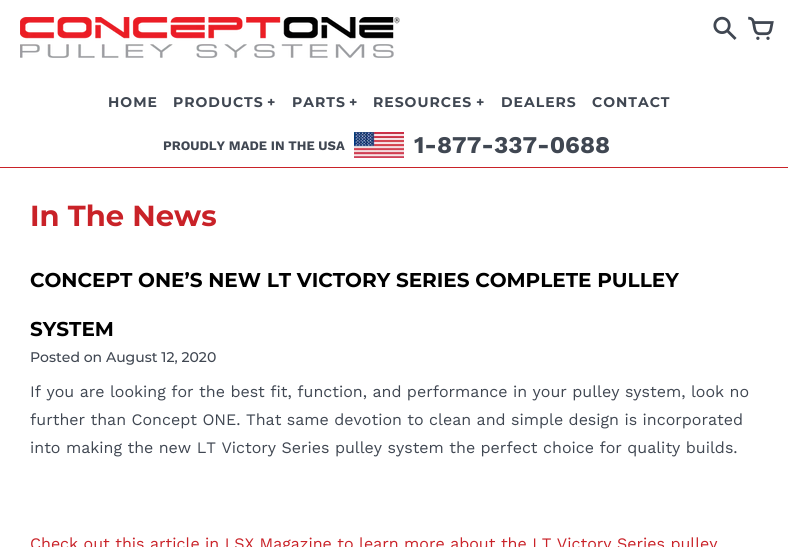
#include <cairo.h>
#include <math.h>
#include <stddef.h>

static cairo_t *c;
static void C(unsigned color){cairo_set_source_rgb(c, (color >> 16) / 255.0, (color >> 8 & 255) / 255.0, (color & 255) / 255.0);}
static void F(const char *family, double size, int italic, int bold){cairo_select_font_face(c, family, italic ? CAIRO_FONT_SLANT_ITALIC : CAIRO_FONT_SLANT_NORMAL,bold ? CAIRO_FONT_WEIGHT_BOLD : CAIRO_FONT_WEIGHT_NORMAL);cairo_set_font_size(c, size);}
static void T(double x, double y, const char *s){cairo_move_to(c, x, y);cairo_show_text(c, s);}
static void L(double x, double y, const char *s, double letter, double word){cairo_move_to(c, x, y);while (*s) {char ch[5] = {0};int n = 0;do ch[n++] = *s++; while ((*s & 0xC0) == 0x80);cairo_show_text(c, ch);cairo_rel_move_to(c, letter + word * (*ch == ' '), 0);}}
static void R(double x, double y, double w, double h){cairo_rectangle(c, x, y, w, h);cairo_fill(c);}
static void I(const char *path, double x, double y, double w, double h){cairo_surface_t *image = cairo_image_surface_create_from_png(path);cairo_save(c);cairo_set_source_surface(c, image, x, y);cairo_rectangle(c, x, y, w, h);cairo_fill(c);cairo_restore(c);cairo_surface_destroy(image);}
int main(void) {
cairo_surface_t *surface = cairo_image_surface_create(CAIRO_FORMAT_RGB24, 788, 547);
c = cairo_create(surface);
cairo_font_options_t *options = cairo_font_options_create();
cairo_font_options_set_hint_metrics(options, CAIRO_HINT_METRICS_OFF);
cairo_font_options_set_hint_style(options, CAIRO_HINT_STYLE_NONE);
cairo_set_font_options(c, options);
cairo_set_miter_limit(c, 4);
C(0xffffff);
cairo_paint(c);
C(0xc92228);
R(0,167,788,1);
I("1.png",20,17,380,41);
F("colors",26,0,0);
C(0x404752);
T(712,43,"2");
T(748,43,"3");
F("Montserrat",14,0,1);
L(108,107,"HOME",1,0);
L(173,107,"PRODUCTS",1,0);
L(267,107,"+",1,0);
L(292,107,"PARTS",1,0);
L(349,107,"+",1,0);
L(373,107,"RESOURCES",1,0);
L(476,107,"+",1,0);
L(501,107,"DEALERS",1,0);
L(592,107,"CONTACT",1,0);
F("Work Sans",13,0,1);
T(163,150,"PROUDLY MADE IN THE USA");
I("2.png",354,132,50,26);
F("Work Sans",24,0,1);
T(414,153,"1-877-337-0688");
F("Montserrat",29,0,1);
C(0xc92228);
T(30,226,"In The News");
F("Montserrat",20,0,1);
C(0x000000);
T(30,287,"CONCEPT ONE’S NEW LT VICTORY SERIES COMPLETE PULLEY");
T(30,336,"SYSTEM");
F("Montserrat Medium",14,0,0);
C(0x404752);
T(30,362,"Posted on August 12, 2020");
F("Work Sans",16,0,0);
T(30,397,"If you are looking for the best fit, function, and performance in your pulley system, look no");
T(30,425,"further than Concept ONE. That same devotion to clean and simple design is incorporated");
T(30,453,"into making the new LT Victory Series pulley system the perfect choice for quality builds.");
C(0xc92228);
T(30,549,"Check out this article in LSX Magazine to learn more about the LT Victory Series pulley");
cairo_surface_write_to_png(surface, "o.png");
cairo_font_options_destroy(options);
cairo_destroy(c);
cairo_surface_destroy(surface);
return 0;
}
